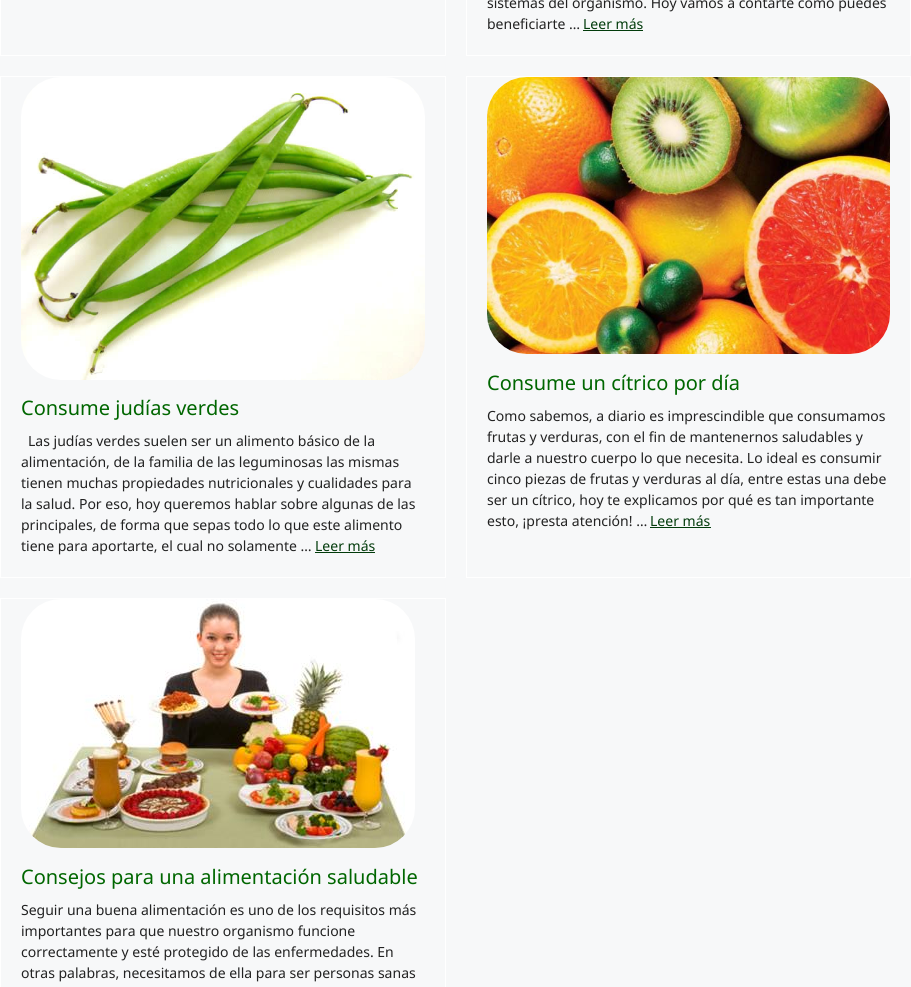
#include <cairo.h>
#include <math.h>
#include <stddef.h>

static cairo_t *c;
static void C(unsigned color){cairo_set_source_rgb(c, (color >> 16) / 255.0, (color >> 8 & 255) / 255.0, (color & 255) / 255.0);}
static void F(const char *family, double size, int italic, int bold){cairo_select_font_face(c, family, italic ? CAIRO_FONT_SLANT_ITALIC : CAIRO_FONT_SLANT_NORMAL,bold ? CAIRO_FONT_WEIGHT_BOLD : CAIRO_FONT_WEIGHT_NORMAL);cairo_set_font_size(c, size);}
static void T(double x, double y, const char *s){cairo_move_to(c, x, y);cairo_show_text(c, s);}
static void R(double x, double y, double w, double h){cairo_rectangle(c, x, y, w, h);cairo_fill(c);}
static void I(const char *path, double x, double y, double w, double h){cairo_surface_t *image = cairo_image_surface_create_from_png(path);cairo_save(c);cairo_set_source_surface(c, image, x, y);cairo_rectangle(c, x, y, w, h);cairo_fill(c);cairo_restore(c);cairo_surface_destroy(image);}
int main(void) {
cairo_surface_t *surface = cairo_image_surface_create(CAIRO_FORMAT_RGB24, 911, 987);
c = cairo_create(surface);
cairo_font_options_t *options = cairo_font_options_create();
cairo_font_options_set_hint_metrics(options, CAIRO_HINT_METRICS_OFF);
cairo_font_options_set_hint_style(options, CAIRO_HINT_STYLE_NONE);
cairo_set_font_options(c, options);
cairo_set_miter_limit(c, 4);
C(0xf7f8f9);
cairo_paint(c);
cairo_rectangle(c,.5,-.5,445,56);
C(0xffffff);
cairo_set_line_width(c,1);
cairo_stroke(c);
cairo_rectangle(c,466.5,-.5,444,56);
cairo_stroke(c);
F("Noto Sans",14,0,0);
C(0x222222);
T(487,8,"sistemas del organismo. Hoy vamos a contarte cómo puedes");
T(487,29,"beneficiarte …");
C(0x023b0b);
T(583,29,"Leer más");
R(583,30,60,1);
cairo_rectangle(c,.5,76.5,445,501);
C(0xffffff);
cairo_stroke(c);
I("1.png",21,77,404,303);
F("Noto Sans",20,0,0);
C(0x006600);
T(21,415,"Consume judías verdes");
F("Noto Sans",14,0,0);
C(0x222222);
T(28,446,"Las judías verdes suelen ser un alimento básico de la");
T(21,467,"alimentación, de la familia de las leguminosas las mismas");
T(21,488,"tienen muchas propiedades nutricionales y cualidades para");
T(21,509,"la salud. Por eso, hoy queremos hablar sobre algunas de las");
T(21,530,"principales, de forma que sepas todo lo que este alimento");
T(21,551,"tiene para aportarte, el cual no solamente …");
C(0x023b0b);
T(315,551,"Leer más");
R(315,552,60,1);
cairo_rectangle(c,466.5,76.5,444,501);
C(0xffffff);
cairo_stroke(c);
I("2.png",487,77,403,277);
F("Noto Sans",20,0,0);
C(0x006600);
T(487,390,"Consume un cítrico por día");
F("Noto Sans",14,0,0);
C(0x222222);
T(487,421,"Como sabemos, a diario es imprescindible que consumamos");
T(487,442,"frutas y verduras, con el fin de mantenernos saludables y");
T(487,463,"darle a nuestro cuerpo lo que necesita. Lo ideal es consumir");
T(487,484,"cinco piezas de frutas y verduras al día, entre estas una debe");
T(487,505,"ser un cítrico, hoy te explicamos por qué es tan importante");
T(487,526,"esto, ¡presta atención! …");
C(0x023b0b);
T(650,526,"Leer más");
R(650,527,61,1);
cairo_rectangle(c,.5,598.5,445,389);
C(0xffffff);
cairo_stroke(c);
I("3.png",21,599,394,249);
F("Noto Sans",20,0,0);
C(0x006600);
T(21,884,"Consejos para una alimentación saludable");
F("Noto Sans",14,0,0);
C(0x222222);
T(21,915,"Seguir una buena alimentación es uno de los requisitos más");
T(21,936,"importantes para que nuestro organismo funcione");
T(21,957,"correctamente y esté protegido de las enfermedades. En");
T(21,978,"otras palabras, necesitamos de ella para ser personas sanas");
cairo_surface_write_to_png(surface, "o.png");
cairo_font_options_destroy(options);
cairo_destroy(c);
cairo_surface_destroy(surface);
return 0;
}
